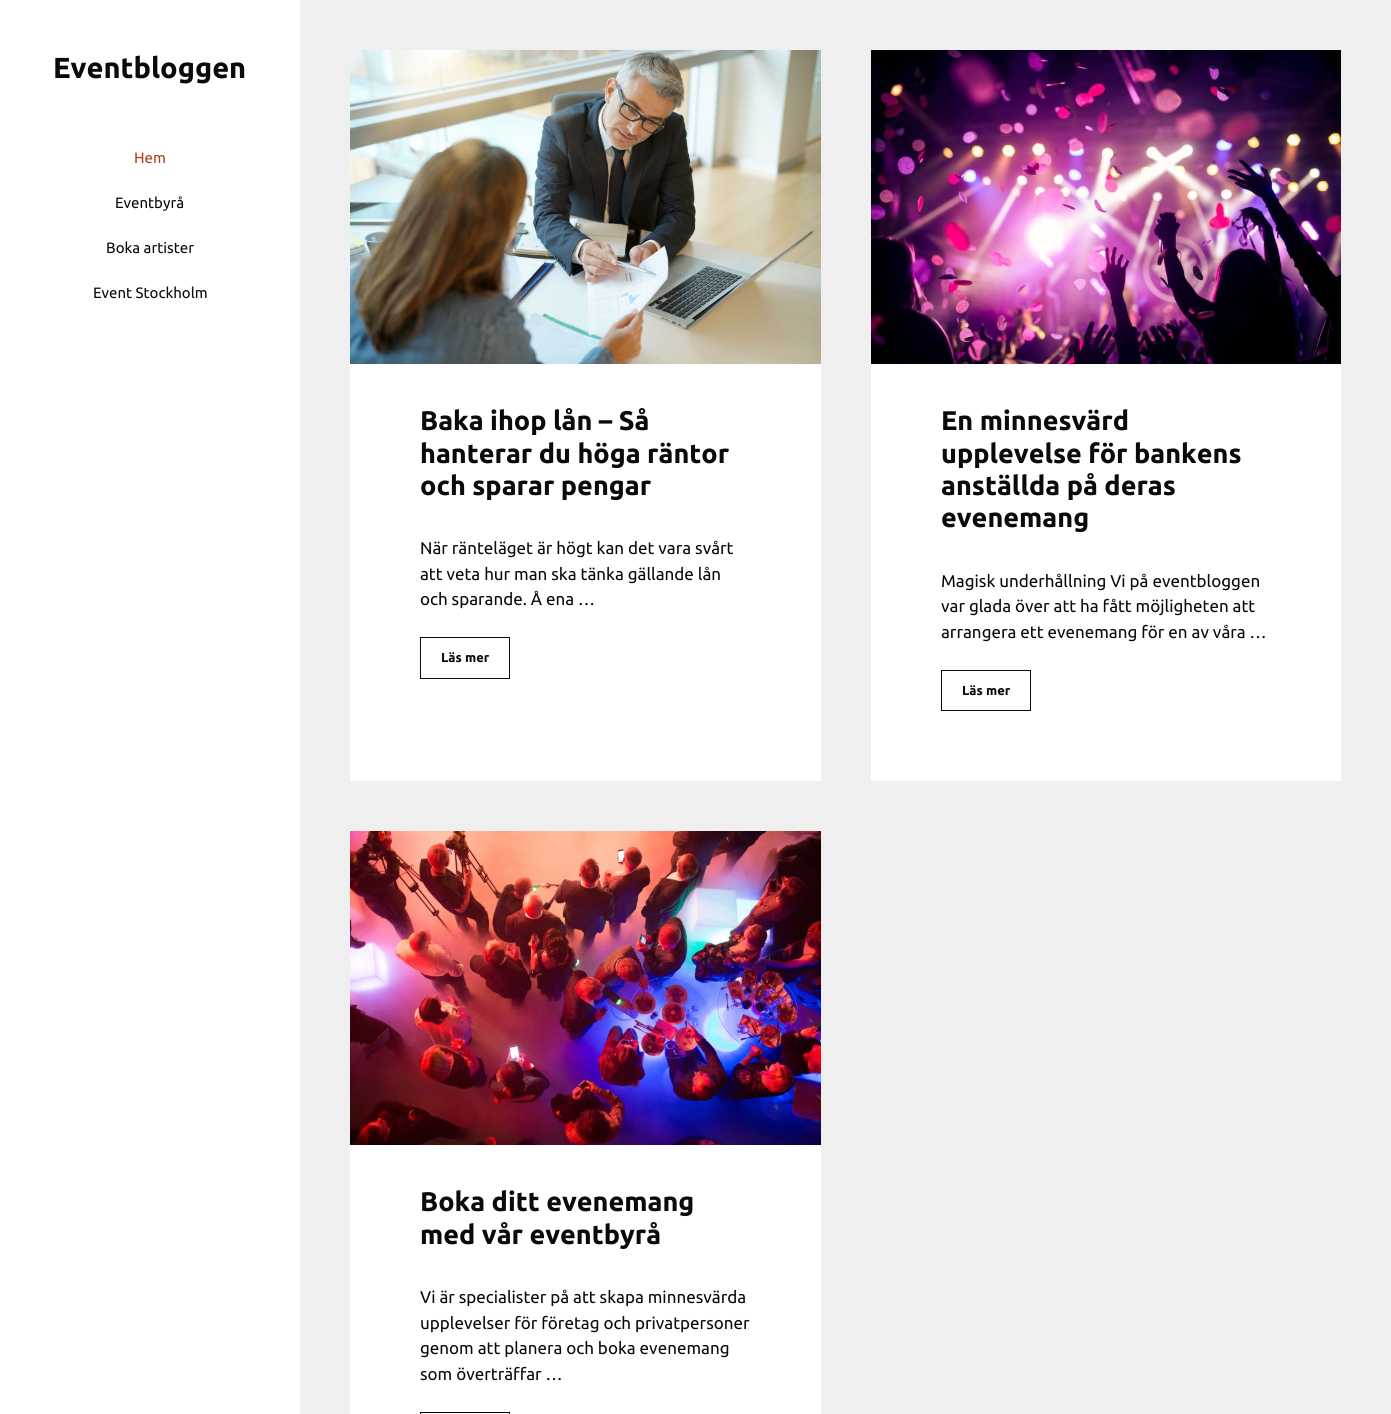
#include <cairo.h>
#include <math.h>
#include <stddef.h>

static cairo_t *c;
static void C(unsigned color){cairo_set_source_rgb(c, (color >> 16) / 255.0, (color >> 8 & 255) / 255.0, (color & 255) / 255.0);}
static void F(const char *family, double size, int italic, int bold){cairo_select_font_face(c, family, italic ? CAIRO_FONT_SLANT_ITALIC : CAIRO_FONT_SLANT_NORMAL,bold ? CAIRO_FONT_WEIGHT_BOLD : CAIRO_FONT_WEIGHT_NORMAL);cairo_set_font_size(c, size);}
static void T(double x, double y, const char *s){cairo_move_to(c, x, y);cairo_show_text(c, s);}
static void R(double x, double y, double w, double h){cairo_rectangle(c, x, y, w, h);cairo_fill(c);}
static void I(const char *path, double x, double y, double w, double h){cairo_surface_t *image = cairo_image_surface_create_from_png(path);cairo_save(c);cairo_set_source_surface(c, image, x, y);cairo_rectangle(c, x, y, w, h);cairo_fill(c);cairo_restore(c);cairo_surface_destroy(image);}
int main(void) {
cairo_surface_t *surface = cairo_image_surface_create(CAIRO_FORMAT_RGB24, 1391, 1414);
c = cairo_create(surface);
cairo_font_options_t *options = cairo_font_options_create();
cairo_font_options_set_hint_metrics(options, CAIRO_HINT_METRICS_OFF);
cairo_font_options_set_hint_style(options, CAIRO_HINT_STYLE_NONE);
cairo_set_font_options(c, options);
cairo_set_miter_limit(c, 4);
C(0xefefef);
cairo_paint(c);
C(0xffffff);
R(0,0,300,1414);
F("Ubuntu",29,0,1);
C(0x0a0a0a);
T(53,78,"Eventbloggen");
F("Ubuntu",15,0,0);
C(0xa83f19);
T(134,163,"Hem");
C(0x0a0a0a);
T(115,208,"Eventbyrå");
T(106,253,"Boka artister");
T(93,298,"Event Stockholm");
C(0xffffff);
R(350,364,471,417);
I("1.png",350,50,471,314);
F("Ubuntu",27,0,1);
C(0x0a0a0a);
T(420,430,"Baka ihop lån – Så");
T(420,463,"hanterar du höga räntor");
T(420,495,"och sparar pengar");
F("Ubuntu",17,0,0);
T(420,554,"När ränteläget är högt kan det vara svårt");
T(420,580,"att veta hur man ska tänka gällande lån");
T(420,605,"och sparande. Å ena …");
cairo_rectangle(c,420.5,637.5,89,41);
cairo_set_line_width(c,1);
cairo_stroke(c);
F("Ubuntu",13,0,1);
T(441,662,"Läs mer");
C(0xffffff);
R(871,364,470,417);
I("2.png",871,50,470,314);
F("Ubuntu",27,0,1);
C(0x0a0a0a);
T(941,430,"En minnesvärd");
T(941,463,"upplevelse för bankens");
T(941,495,"anställda på deras");
T(941,527,"evenemang");
F("Ubuntu",17,0,0);
T(941,587,"Magisk underhållning Vi på eventbloggen");
T(941,612,"var glada över att ha fått möjligheten att");
T(941,638,"arrangera ett evenemang för en av våra …");
cairo_rectangle(c,941.5,670.5,89,40);
cairo_stroke(c);
F("Ubuntu",13,0,1);
T(962,695,"Läs mer");
C(0xffffff);
R(350,1145,471,269);
I("3.png",350,831,471,314);
F("Ubuntu",27,0,1);
C(0x0a0a0a);
T(420,1211,"Boka ditt evenemang");
T(420,1244,"med vår eventbyrå");
F("Ubuntu",17,0,0);
T(420,1303,"Vi är specialister på att skapa minnesvärda");
T(420,1329,"upplevelser för företag och privatpersoner");
T(420,1354,"genom att planera och boka evenemang");
T(420,1380,"som överträffar …");
cairo_rectangle(c,420.5,1412.5,89,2);
cairo_stroke(c);
cairo_surface_write_to_png(surface, "o.png");
cairo_font_options_destroy(options);
cairo_destroy(c);
cairo_surface_destroy(surface);
return 0;
}
